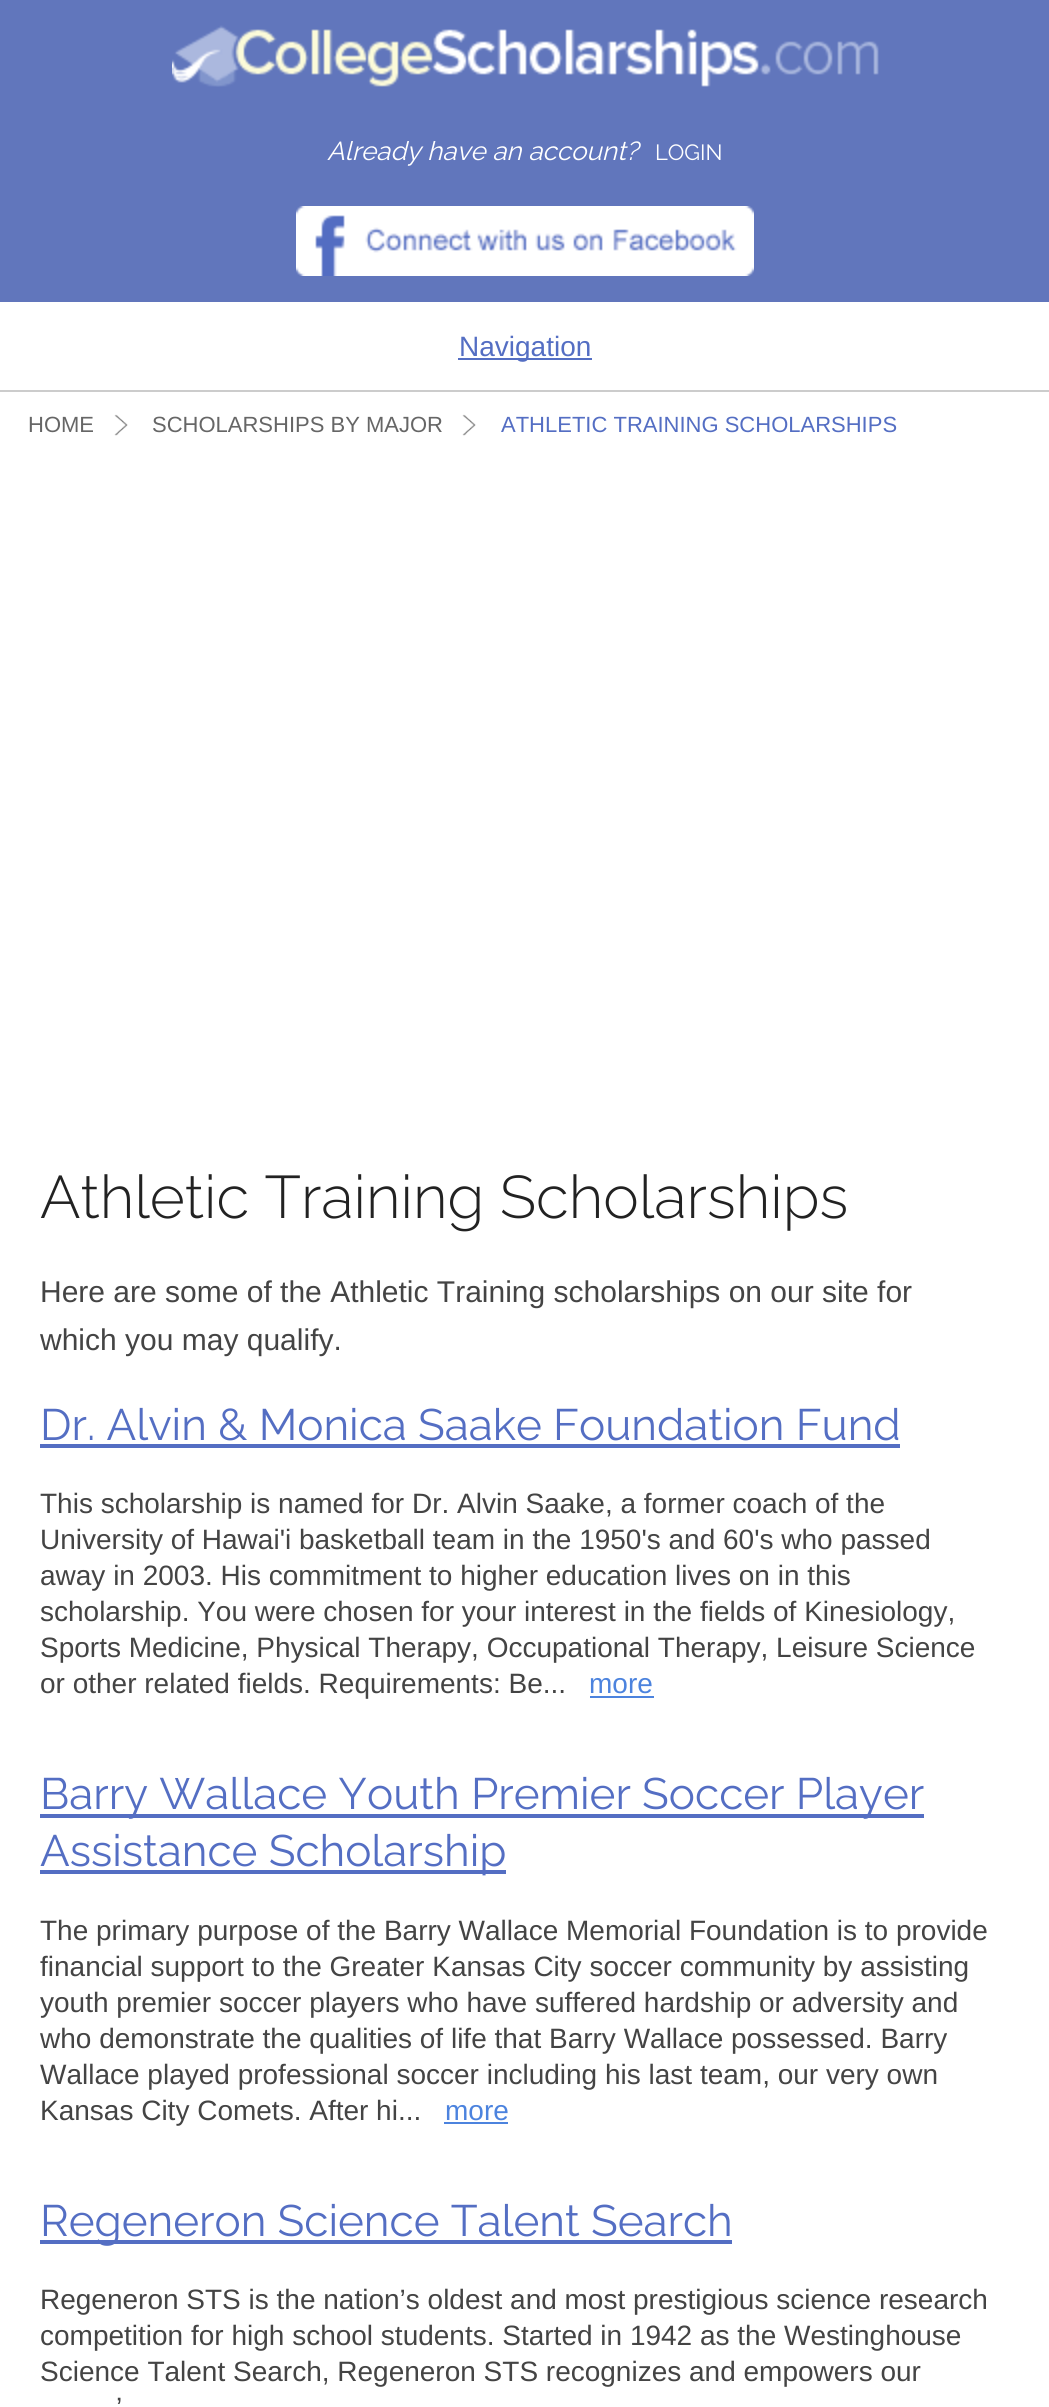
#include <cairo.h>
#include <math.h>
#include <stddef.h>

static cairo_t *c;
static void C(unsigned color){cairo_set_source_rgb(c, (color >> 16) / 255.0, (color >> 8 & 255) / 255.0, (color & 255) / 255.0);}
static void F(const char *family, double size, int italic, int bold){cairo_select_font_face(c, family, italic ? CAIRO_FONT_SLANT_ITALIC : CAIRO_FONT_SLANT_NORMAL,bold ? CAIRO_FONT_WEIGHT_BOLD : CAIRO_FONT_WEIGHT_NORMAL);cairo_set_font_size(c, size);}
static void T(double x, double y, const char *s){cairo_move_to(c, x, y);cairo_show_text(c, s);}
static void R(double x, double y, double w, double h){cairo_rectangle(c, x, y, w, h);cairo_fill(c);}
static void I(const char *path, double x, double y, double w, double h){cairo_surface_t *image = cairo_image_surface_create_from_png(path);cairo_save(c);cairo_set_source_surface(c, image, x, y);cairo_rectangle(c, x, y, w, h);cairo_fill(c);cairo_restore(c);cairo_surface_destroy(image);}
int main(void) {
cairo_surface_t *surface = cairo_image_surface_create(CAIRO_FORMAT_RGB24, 1049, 2407);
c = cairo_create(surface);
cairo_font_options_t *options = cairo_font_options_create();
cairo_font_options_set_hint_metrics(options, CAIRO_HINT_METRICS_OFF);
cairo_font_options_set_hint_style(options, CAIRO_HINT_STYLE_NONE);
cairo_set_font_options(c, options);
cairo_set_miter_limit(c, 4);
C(0xffffff);
cairo_paint(c);
C(0x6176bc);
R(0,0,1049,302);
I("1.png",172,25,707,62);
F("Raleway",26,1,0);
C(0xffffff);
T(327,160,"Already have an account?");
F("Raleway",22,0,0);
T(655,160,"LOGIN");
I("2.png",296,206,458,70);
C(0x546ec3);
R(458,358,134,2);
F("Liberation Sans",28,0,0);
T(459,356,"Navigation");
C(0xcccccc);
R(0,390,1049,2);
F("Liberation Sans",22,0,0);
C(0x666666);
T(28,432,"HOME");
I("3.png",114,414,14,22);
T(152,432,"SCHOLARSHIPS BY MAJOR");
I("3.png",462,414,14,22);
C(0x546ec3);
T(501,432,"ATHLETIC TRAINING SCHOLARSHIPS");
F("Raleway Light",60,0,0);
C(0x222222);
T(40,1218,"Athletic Training Scholarships");
F("Liberation Sans",30,0,0);
C(0x444444);
T(40,1302,"Here are some of the Athletic Training scholarships on our site for");
T(40,1350,"which you may qualify.");
F("Raleway",44,0,0);
C(0x546ec3);
T(40,1440,"Dr. Alvin & Monica Saake Foundation Fund");
R(40,1444,860,4);
F("Liberation Sans",28,0,0);
C(0x444444);
T(40,1513,"This scholarship is named for Dr. Alvin Saake, a former coach of the");
T(40,1549,"University of Hawai'i basketball team in the 1950's and 60's who passed");
T(40,1585,"away in 2003. His commitment to higher education lives on in this");
T(40,1621,"scholarship. You were chosen for your interest in the fields of Kinesiology,");
T(40,1657,"Sports Medicine, Physical Therapy, Occupational Therapy, Leisure Science");
T(40,1693,"or other related fields. Requirements: Be...");
C(0x4c83de);
T(589,1693,"more");
R(590,1696,64,2);
C(0x546ec3);
R(40,1814,884,4);
F("Raleway",44,0,0);
T(40,1809,"Barry Wallace Youth Premier Soccer Player");
R(40,1870,466,4);
T(40,1866,"Assistance Scholarship");
F("Liberation Sans",28,0,0);
C(0x444444);
T(40,1940,"The primary purpose of the Barry Wallace Memorial Foundation is to provide");
T(40,1976,"financial support to the Greater Kansas City soccer community by assisting");
T(40,2012,"youth premier soccer players who have suffered hardship or adversity and");
T(40,2048,"who demonstrate the qualities of life that Barry Wallace possessed. Barry");
T(40,2084,"Wallace played professional soccer including his last team, our very own");
T(40,2120,"Kansas City Comets. After hi...");
C(0x4c83de);
T(445,2120,"more");
R(444,2122,64,2);
C(0x546ec3);
R(40,2240,692,4);
F("Raleway",44,0,0);
T(40,2236,"Regeneron Science Talent Search");
F("Liberation Sans",28,0,0);
C(0x444444);
T(40,2309,"Regeneron STS is the nation’s oldest and most prestigious science research");
T(40,2345,"competition for high school students. Started in 1942 as the Westinghouse");
T(40,2381,"Science Talent Search, Regeneron STS recognizes and empowers our");
T(116,2417,"’");
cairo_surface_write_to_png(surface, "o.png");
cairo_font_options_destroy(options);
cairo_destroy(c);
cairo_surface_destroy(surface);
return 0;
}
